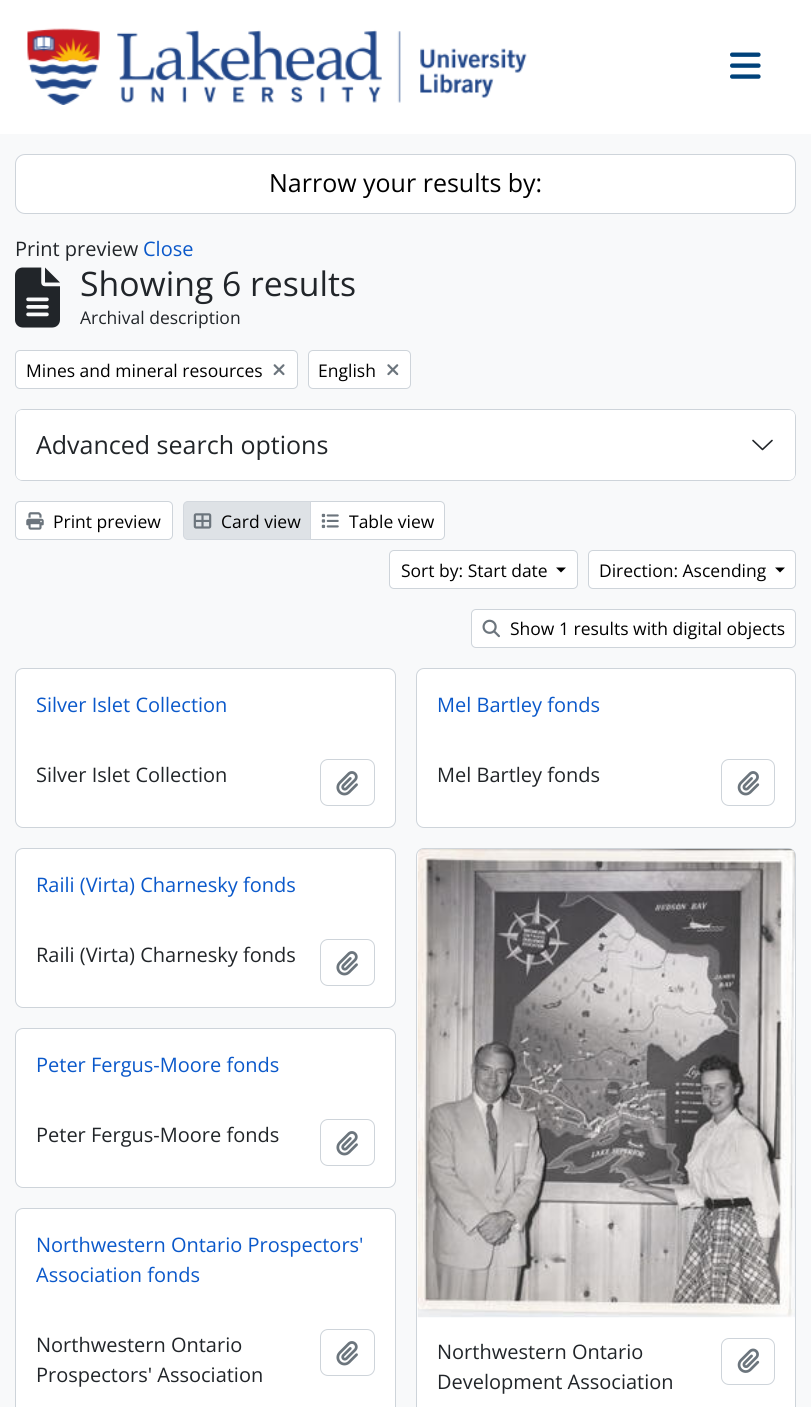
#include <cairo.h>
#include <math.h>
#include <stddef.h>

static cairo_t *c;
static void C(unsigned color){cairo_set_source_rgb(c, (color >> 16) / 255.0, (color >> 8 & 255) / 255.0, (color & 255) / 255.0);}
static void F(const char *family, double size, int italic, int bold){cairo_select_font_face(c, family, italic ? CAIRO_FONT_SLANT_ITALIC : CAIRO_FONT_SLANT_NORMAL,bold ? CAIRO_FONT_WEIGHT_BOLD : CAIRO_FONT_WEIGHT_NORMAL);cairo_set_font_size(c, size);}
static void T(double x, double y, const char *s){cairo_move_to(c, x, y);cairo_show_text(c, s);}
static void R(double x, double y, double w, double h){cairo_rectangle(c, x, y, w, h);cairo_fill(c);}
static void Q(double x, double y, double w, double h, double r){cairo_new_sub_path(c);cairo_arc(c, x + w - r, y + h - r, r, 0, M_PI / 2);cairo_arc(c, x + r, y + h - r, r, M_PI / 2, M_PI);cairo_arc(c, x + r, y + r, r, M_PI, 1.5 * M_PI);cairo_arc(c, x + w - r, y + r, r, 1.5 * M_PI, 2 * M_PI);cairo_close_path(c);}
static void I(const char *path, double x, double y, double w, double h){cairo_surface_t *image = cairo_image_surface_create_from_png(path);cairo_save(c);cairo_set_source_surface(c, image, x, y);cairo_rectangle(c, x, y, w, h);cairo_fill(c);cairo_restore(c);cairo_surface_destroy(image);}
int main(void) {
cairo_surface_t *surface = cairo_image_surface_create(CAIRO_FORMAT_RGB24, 811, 1407);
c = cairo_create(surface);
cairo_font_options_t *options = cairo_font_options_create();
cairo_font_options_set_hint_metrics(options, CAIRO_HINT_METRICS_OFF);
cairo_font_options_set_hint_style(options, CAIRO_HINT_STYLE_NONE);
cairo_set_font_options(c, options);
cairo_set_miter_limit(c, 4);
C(0xf8f9fa);
cairo_paint(c);
C(0xffffff);
R(0,0,811,134);
I("1.png",27,28,500,77);
I("2.png",730,52,31,27);
Q(15.5,154.5,780,59,9.5);
cairo_fill_preserve(c);
C(0xced4da);
cairo_set_line_width(c,1);
cairo_stroke(c);
F("Open Sans",25,0,0);
C(0x000000);
T(269,192,"Narrow your results by:");
F("Open Sans",20,0,0);
C(0x212529);
T(15,256,"Print preview");
C(0x0a58ca);
T(143,256,"Close");
I("3.png",15,267,45,61);
F("Open Sans",33.75,0,0);
C(0x212529);
T(80,296,"Showing 6 results");
F("Open Sans",17.5,0,0);
T(80,324,"Archival description");
C(0xffffff);
Q(15.5,350.5,282,38,4.5);
cairo_fill_preserve(c);
C(0xced4da);
cairo_stroke(c);
C(0x000000);
T(26,377,"Mines and mineral resources");
I("4.png",273,364,12,12);
C(0xffffff);
Q(308.5,350.5,102,38,4.5);
cairo_fill_preserve(c);
C(0xced4da);
cairo_stroke(c);
C(0x000000);
T(318,377,"English");
I("5.png",387,364,12,12);
Q(15.5,409.5,780,71,7.5);
C(0xced4da);
cairo_stroke(c);
C(0xffffff);
Q(16,410,779,70,6);
cairo_fill(c);
F("Open Sans",25,0,0);
C(0x212529);
T(36,454,"Advanced search options");
cairo_new_path(c);
cairo_move_to(c,753,440.5);
cairo_line_to(c,762.5,449.5);
cairo_line_to(c,772,440.5);
cairo_set_line_width(c,1.6);
cairo_set_line_cap(c,CAIRO_LINE_CAP_ROUND);
cairo_set_line_join(c,CAIRO_LINE_JOIN_ROUND);
cairo_stroke(c);
C(0xffffff);
Q(15.5,501.5,157,38,4.5);
cairo_fill_preserve(c);
C(0xced4da);
cairo_set_line_width(c,1);
cairo_set_line_cap(c,CAIRO_LINE_CAP_BUTT);
cairo_set_line_join(c,CAIRO_LINE_JOIN_MITER);
cairo_stroke(c);
I("6.png",26,512,18,18);
F("Open Sans",17.5,0,0);
C(0x000000);
T(53,528,"Print preview");
C(0xffffff);
cairo_new_path(c);
cairo_move_to(c,310.5,501.5);
cairo_line_to(c,440,501.5);
cairo_curve_to(c,442.5,501.5,444.5,503.5,444.5,506);
cairo_line_to(c,444.5,535);
cairo_curve_to(c,444.5,537.5,442.5,539.5,440,539.5);
cairo_line_to(c,310.5,539.5);
cairo_close_path(c);
cairo_fill_preserve(c);
C(0xced4da);
cairo_stroke(c);
C(0xdee2e6);
cairo_new_path(c);
cairo_move_to(c,188,501.5);
cairo_line_to(c,310.5,501.5);
cairo_line_to(c,310.5,539.5);
cairo_line_to(c,188,539.5);
cairo_curve_to(c,185.5,539.5,183.5,537.5,183.5,535);
cairo_line_to(c,183.5,506);
cairo_curve_to(c,183.5,503.5,185.5,501.5,188,501.5);
cairo_close_path(c);
cairo_fill_preserve(c);
C(0xd3d8de);
cairo_stroke(c);
I("7.png",193,513,19,16);
C(0x000000);
T(221,528,"Card view");
I("8.png",321,513,18,16);
T(349,528,"Table view");
C(0xffffff);
Q(389.5,550.5,188,38,4.5);
cairo_fill_preserve(c);
C(0xced4da);
cairo_stroke(c);
C(0x000000);
T(401,577,"Sort by: Start date");
cairo_new_path(c);
cairo_move_to(c,556,567.5);
cairo_line_to(c,566,567.5);
cairo_line_to(c,561,572.5);
cairo_close_path(c);
cairo_fill(c);
C(0xffffff);
Q(588.5,550.5,207,38,4.5);
cairo_fill_preserve(c);
C(0xced4da);
cairo_stroke(c);
C(0x000000);
T(599,577,"Direction: Ascending");
cairo_new_path(c);
cairo_move_to(c,775,567.5);
cairo_line_to(c,785,567.5);
cairo_line_to(c,780,572.5);
cairo_close_path(c);
cairo_fill(c);
C(0xffffff);
Q(471.5,609.5,324,38,4.5);
cairo_fill_preserve(c);
C(0xced4da);
cairo_stroke(c);
I("9.png",482,619,18,19);
C(0x000000);
T(510,635,"Show 1 results with digital objects");
C(0xffffff);
Q(15.5,668.5,380,159,7.5);
cairo_fill_preserve(c);
C(0xced4da);
cairo_stroke(c);
F("Open Sans",20,0,0);
C(0x0a58ca);
T(36,712,"Silver Islet Collection");
C(0x212529);
T(36,782,"Silver Islet Collection");
Q(320.5,759.5,54,46,7.5);
C(0xced4da);
cairo_stroke(c);
I("10.png",336,771,22,25);
C(0xffffff);
Q(416.5,668.5,379,159,7.5);
cairo_fill_preserve(c);
C(0xced4da);
cairo_stroke(c);
C(0x0a58ca);
T(437,712,"Mel Bartley fonds");
C(0x212529);
T(437,782,"Mel Bartley fonds");
Q(721.5,759.5,53,46,7.5);
C(0xced4da);
cairo_stroke(c);
I("11.png",737,771,23,25);
C(0xffffff);
Q(15.5,848.5,380,159,7.5);
cairo_fill_preserve(c);
C(0xced4da);
cairo_stroke(c);
C(0x0a58ca);
T(36,892,"Raili (Virta) Charnesky fonds");
C(0x212529);
T(36,962,"Raili (Virta) Charnesky fonds");
Q(320.5,939.5,54,46,7.5);
C(0xced4da);
cairo_stroke(c);
I("10.png",336,951,22,25);
C(0xffffff);
Q(15.5,1028.5,380,159,7.5);
cairo_fill_preserve(c);
C(0xced4da);
cairo_stroke(c);
C(0x0a58ca);
T(36,1072,"Peter Fergus-Moore fonds");
C(0x212529);
T(36,1142,"Peter Fergus-Moore fonds");
Q(320.5,1119.5,54,46,7.5);
C(0xced4da);
cairo_stroke(c);
I("10.png",336,1131,22,25);
C(0xffffff);
Q(15.5,1208.5,380,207,7.5);
cairo_fill_preserve(c);
C(0xced4da);
cairo_stroke(c);
C(0x0a58ca);
T(36,1252,"Northwestern Ontario Prospectors'");
T(36,1282,"Association fonds");
C(0x212529);
T(36,1352,"Northwestern Ontario");
T(36,1382,"Prospectors' Association");
Q(320.5,1329.5,54,46,7.5);
C(0xced4da);
cairo_stroke(c);
I("10.png",336,1341,22,25);
C(0xffffff);
Q(416.5,848.5,379,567,7.5);
cairo_fill_preserve(c);
C(0xced4da);
cairo_stroke(c);
I("12.png",417,848,378,470);
C(0x212529);
T(437,1359,"Northwestern Ontario");
T(437,1389,"Development Association");
Q(721.5,1338.5,53,46,7.5);
C(0xced4da);
cairo_stroke(c);
I("13.png",737,1348,23,25);
cairo_surface_write_to_png(surface, "o.png");
cairo_font_options_destroy(options);
cairo_destroy(c);
cairo_surface_destroy(surface);
return 0;
}
